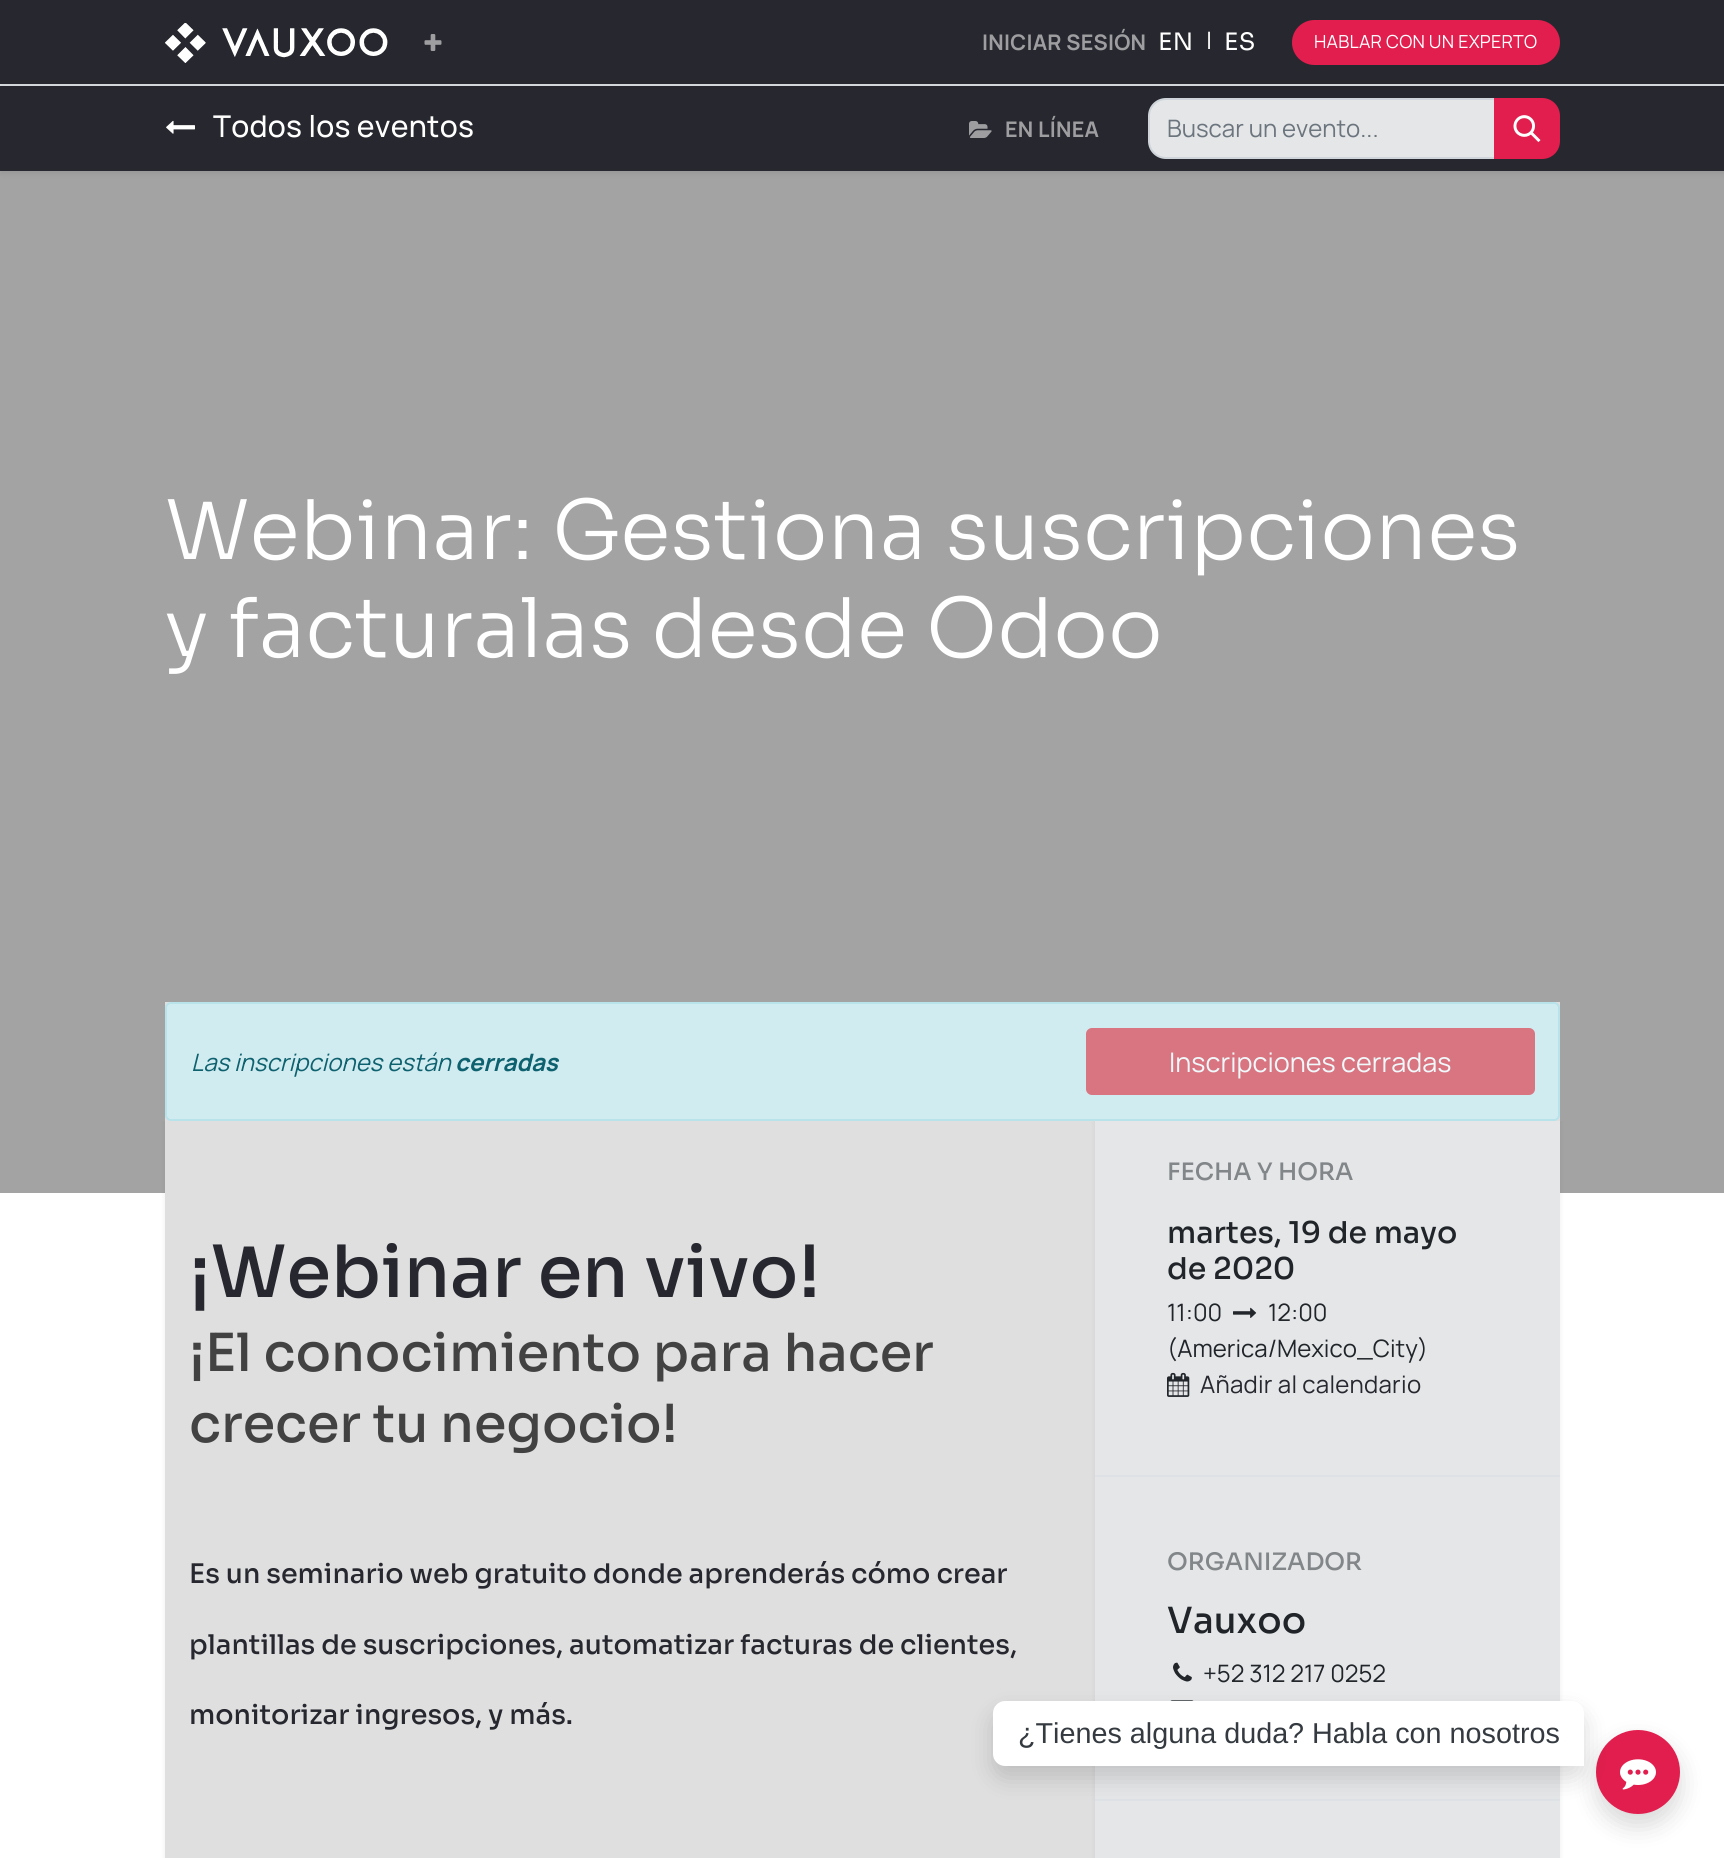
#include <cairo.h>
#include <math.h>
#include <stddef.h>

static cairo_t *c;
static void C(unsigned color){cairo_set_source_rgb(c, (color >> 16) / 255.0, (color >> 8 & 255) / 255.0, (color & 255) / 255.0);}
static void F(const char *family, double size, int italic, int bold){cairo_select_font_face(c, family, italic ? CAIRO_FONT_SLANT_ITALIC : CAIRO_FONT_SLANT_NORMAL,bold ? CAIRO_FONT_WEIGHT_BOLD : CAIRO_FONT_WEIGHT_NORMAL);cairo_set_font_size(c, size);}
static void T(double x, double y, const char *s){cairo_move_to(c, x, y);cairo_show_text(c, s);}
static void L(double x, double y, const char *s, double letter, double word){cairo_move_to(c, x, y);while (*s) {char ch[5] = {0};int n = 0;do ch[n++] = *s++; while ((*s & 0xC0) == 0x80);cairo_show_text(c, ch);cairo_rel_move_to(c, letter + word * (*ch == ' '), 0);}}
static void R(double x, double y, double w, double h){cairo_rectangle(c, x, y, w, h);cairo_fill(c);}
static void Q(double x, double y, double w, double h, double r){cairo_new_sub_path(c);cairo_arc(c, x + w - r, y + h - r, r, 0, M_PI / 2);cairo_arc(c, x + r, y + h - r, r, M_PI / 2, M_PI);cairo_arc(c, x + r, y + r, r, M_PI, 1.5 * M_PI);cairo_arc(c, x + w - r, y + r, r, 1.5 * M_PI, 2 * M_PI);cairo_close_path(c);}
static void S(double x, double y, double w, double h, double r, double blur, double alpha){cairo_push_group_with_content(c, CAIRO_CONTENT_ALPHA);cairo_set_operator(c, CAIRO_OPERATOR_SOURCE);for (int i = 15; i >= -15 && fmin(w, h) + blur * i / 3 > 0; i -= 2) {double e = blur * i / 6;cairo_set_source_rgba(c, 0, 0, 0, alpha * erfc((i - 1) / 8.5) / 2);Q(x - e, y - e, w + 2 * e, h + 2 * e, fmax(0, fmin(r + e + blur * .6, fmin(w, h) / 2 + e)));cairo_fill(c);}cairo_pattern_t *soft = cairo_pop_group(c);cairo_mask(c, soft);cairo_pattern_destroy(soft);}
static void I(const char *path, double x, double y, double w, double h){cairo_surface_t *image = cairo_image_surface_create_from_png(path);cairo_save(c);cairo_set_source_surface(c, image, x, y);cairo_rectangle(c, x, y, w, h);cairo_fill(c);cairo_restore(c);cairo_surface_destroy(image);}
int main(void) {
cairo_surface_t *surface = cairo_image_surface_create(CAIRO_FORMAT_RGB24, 1724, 1858);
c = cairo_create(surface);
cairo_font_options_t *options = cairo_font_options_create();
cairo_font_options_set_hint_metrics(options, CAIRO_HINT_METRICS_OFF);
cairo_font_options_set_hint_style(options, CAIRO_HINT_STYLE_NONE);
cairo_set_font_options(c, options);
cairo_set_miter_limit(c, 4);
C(0xffffff);
cairo_paint(c);
C(0x000000);
S(0,87,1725,87,0,3,.07);
C(0x27282f);
R(0,86,1724,85);
C(0xdee2e6);
R(0,84,1724,2);
C(0x000000);
S(0,3,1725,84,0,3,.07);
C(0x27282f);
R(0,0,1724,84);
I("1.png",165,23,223,40);
I("2.png",424,34,18,17);
F("Manrope",21.5,0,1);
C(0x9e9ea1);
L(982,50,"INICIAR SESIÓN",.25,0);
F("Sora",24,0,0);
C(0xffffff);
L(1158,50,"EN",.25,0);
F("Manrope",24,0,0);
T(1206,49,"|");
F("Sora",24,0,0);
L(1224,50,"ES",.25,0);
C(0xe11e4d);
Q(1293,21,266,43,21.5);
cairo_fill_preserve(c);
cairo_stroke(c);
F("Manrope",18,0,0);
C(0xffffff);
L(1314,48,"HABLAR CON UN EXPERTO",.25,0);
I("3.png",166,120,29,14);
F("Manrope Medium",30,0,0);
L(213,137,"Todos los eventos",.25,0);
I("4.png",969,121,23,17);
F("Manrope",21.5,0,1);
C(0x9e9ea1);
L(1005,137,"EN LÍNEA",.25,0);
C(0xe4e6e8);
cairo_new_path(c);
cairo_move_to(c,1166,99);
cairo_line_to(c,1495,99);
cairo_line_to(c,1495,158);
cairo_line_to(c,1166,158);
cairo_curve_to(c,1156.5,158,1149,150.5,1149,141);
cairo_line_to(c,1149,116);
cairo_curve_to(c,1149,106.5,1156.5,99,1166,99);
cairo_close_path(c);
cairo_fill_preserve(c);
C(0xced4da);
cairo_stroke(c);
F("Manrope",24,0,0);
C(0x6c757d);
T(1167,137,"Buscar un evento...");
C(0xe11e4d);
cairo_new_path(c);
cairo_move_to(c,1495,99);
cairo_line_to(c,1542,99);
cairo_curve_to(c,1551.5,99,1559,106.5,1559,116);
cairo_line_to(c,1559,141);
cairo_curve_to(c,1559,150.5,1551.5,158,1542,158);
cairo_line_to(c,1495,158);
cairo_close_path(c);
cairo_fill_preserve(c);
cairo_stroke(c);
I("5.png",1513,115,28,28);
cairo_set_source_rgba(c,0,0,0,0.36);
R(0,171,1724,1022);
F("Sora Light",82,0,0);
C(0xffffff);
T(165,559,"Webinar: Gestiona suscripciones");
T(165,657,"y facturalas desde Odoo");
C(0xdfdfe0);
R(165,1002,1395,119);
C(0xd1ecf1);
Q(166,1003,1393,117,5);
cairo_fill_preserve(c);
C(0xb9e3ea);
cairo_stroke(c);
F("Manrope",24,1,0);
C(0x0e616e);
T(191,1071,"Las inscripciones están");
F("Manrope",24,1,1);
T(455,1071,"cerradas");
C(0xd87581);
Q(1087,1029,447,65,5);
cairo_fill_preserve(c);
cairo_stroke(c);
F("Manrope",27,0,0);
C(0xeff8fa);
T(1169,1072,"Inscripciones cerradas");
cairo_save(c);
cairo_rectangle(c,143,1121,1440,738);
cairo_clip(c);
C(0x000000);
S(165,1088,930,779,0,3,.07);
cairo_restore(c);
C(0xdfdfe0);
R(165,1121,930,737);
F("Sora Medium",72,0,0);
C(0x27282f);
T(189,1297,"¡Webinar en vivo!");
F("Sora Medium",52.5,0,0);
C(0x424242);
T(189,1371,"¡El conocimiento para hacer");
T(189,1442,"crecer tu negocio!");
F("Sora Medium",27,0,0);
C(0x27282f);
T(189,1583,"Es un seminario web gratuito donde aprenderás cómo crear");
T(189,1654,"plantillas de suscripciones, automatizar facturas de clientes,");
T(189,1724,"monitorizar ingresos, y más.");
cairo_save(c);
cairo_rectangle(c,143,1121,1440,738);
cairo_clip(c);
C(0x000000);
S(1095,1088,465,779,0,3,.07);
cairo_restore(c);
C(0xe4e6e8);
R(1095,1121,465,737);
C(0xdee2e6);
R(1095,1475,465,2);
F("Sora Medium",24,0,0);
C(0x838689);
T(1167,1180,"FECHA Y HORA");
F("Sora Medium",30,0,0);
C(0x212529);
T(1167,1243,"martes, 19 de mayo");
T(1167,1279,"de 2020");
F("Manrope",24,0,0);
T(1167,1321,"11:00");
I("6.png",1233,1307,24,11);
T(1268,1321,"12:00");
T(1167,1357,"(America/Mexico_City)");
I("7.png",1167,1372,23,25);
C(0x27282f);
L(1200,1393,"Añadir al calendario",.25,0);
C(0xdee2e6);
R(1095,1799,465,2);
F("Sora Medium",24,0,0);
C(0x838689);
T(1167,1570,"ORGANIZADOR");
F("Sora Medium",36,0,0);
C(0x212529);
T(1167,1633,"Vauxoo");
I("8.png",1173,1662,19,20);
F("Manrope",24,0,0);
T(1203,1682,"+52 312 217 0252");
I("9.png",1170,1700,24,1);
C(0x000000);
S(1596,1742,84,84,42,12,.15);
C(0xe11e4d);
cairo_arc(c,1638,1772,42,0,2 * M_PI);
cairo_fill(c);
I("10.png",1620,1759,36,31);
C(0x000000);
S(993,1713,591,65,12,12,.15);
C(0xffffff);
cairo_new_path(c);
cairo_move_to(c,1005,1701);
cairo_line_to(c,1572,1701);
cairo_curve_to(c,1578.5,1701,1584,1706.5,1584,1713);
cairo_line_to(c,1584,1766);
cairo_line_to(c,1005,1766);
cairo_curve_to(c,998.5,1766,993,1760.5,993,1754);
cairo_line_to(c,993,1713);
cairo_curve_to(c,993,1706.5,998.5,1701,1005,1701);
cairo_close_path(c);
cairo_fill(c);
F("Liberation Sans",28.75,0,0);
C(0x343a40);
T(1018,1743,"¿Tienes alguna duda? Habla con nosotros");
cairo_surface_write_to_png(surface, "o.png");
cairo_font_options_destroy(options);
cairo_destroy(c);
cairo_surface_destroy(surface);
return 0;
}
